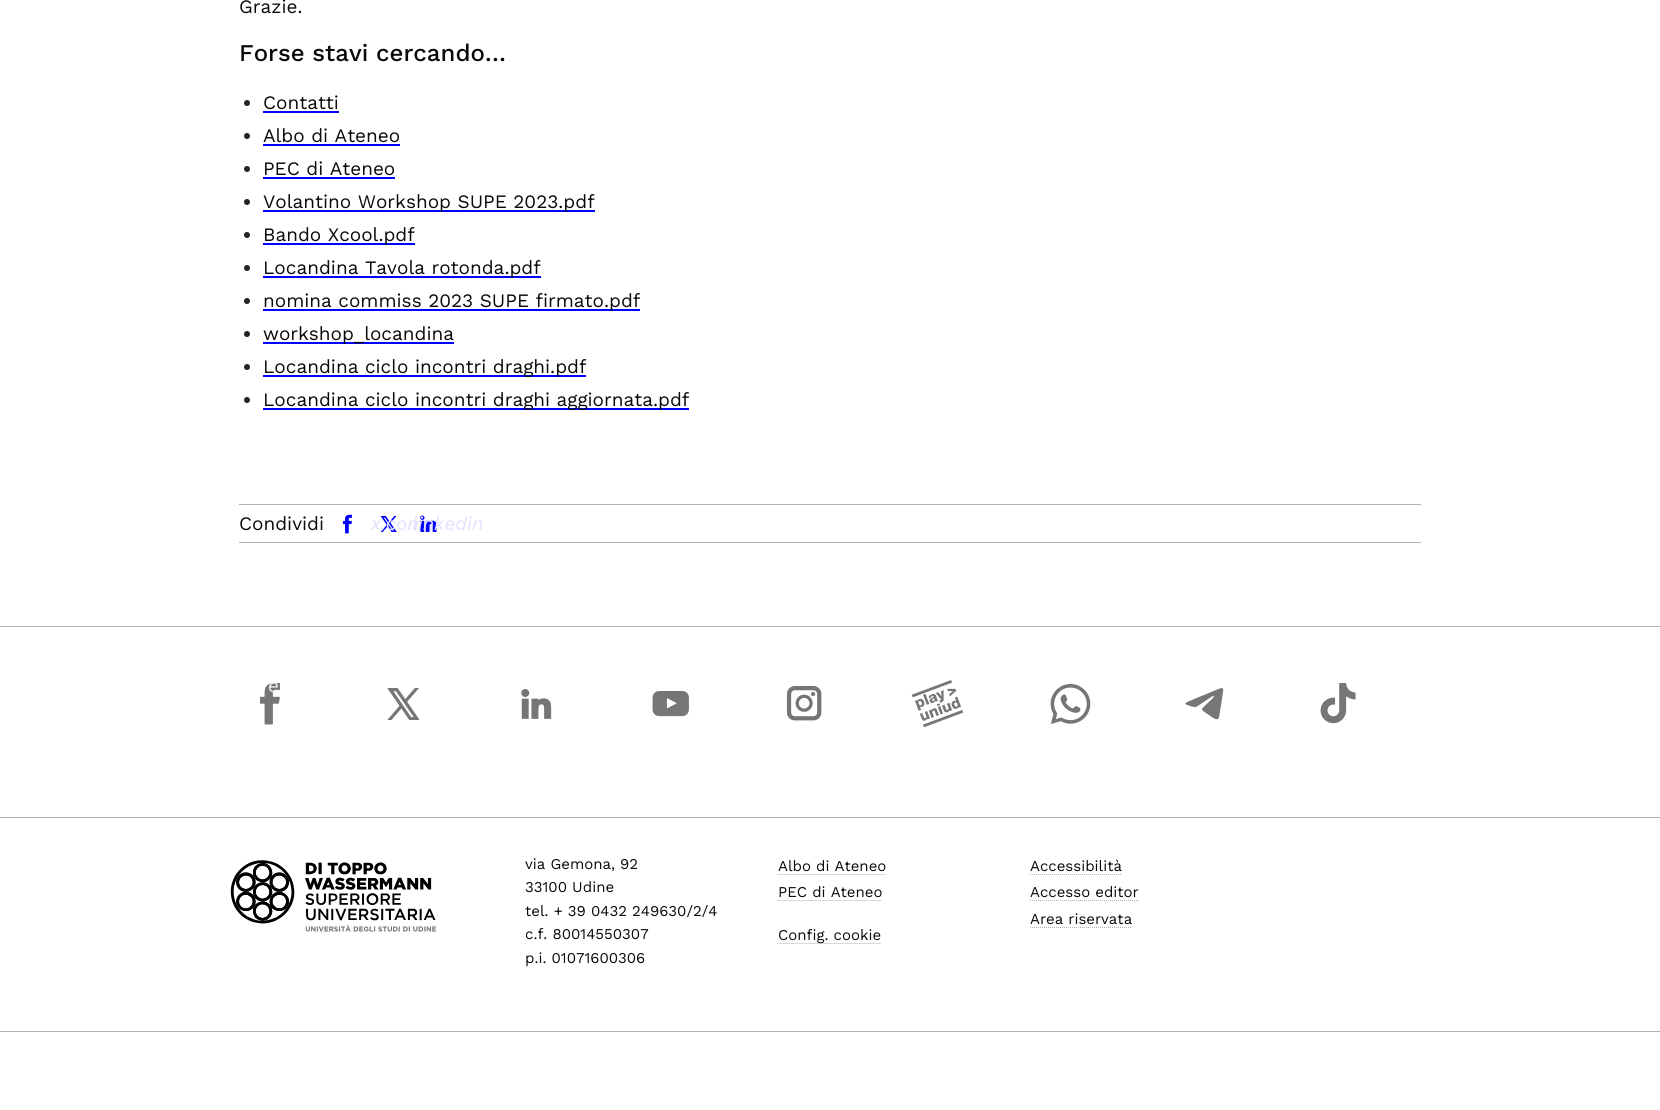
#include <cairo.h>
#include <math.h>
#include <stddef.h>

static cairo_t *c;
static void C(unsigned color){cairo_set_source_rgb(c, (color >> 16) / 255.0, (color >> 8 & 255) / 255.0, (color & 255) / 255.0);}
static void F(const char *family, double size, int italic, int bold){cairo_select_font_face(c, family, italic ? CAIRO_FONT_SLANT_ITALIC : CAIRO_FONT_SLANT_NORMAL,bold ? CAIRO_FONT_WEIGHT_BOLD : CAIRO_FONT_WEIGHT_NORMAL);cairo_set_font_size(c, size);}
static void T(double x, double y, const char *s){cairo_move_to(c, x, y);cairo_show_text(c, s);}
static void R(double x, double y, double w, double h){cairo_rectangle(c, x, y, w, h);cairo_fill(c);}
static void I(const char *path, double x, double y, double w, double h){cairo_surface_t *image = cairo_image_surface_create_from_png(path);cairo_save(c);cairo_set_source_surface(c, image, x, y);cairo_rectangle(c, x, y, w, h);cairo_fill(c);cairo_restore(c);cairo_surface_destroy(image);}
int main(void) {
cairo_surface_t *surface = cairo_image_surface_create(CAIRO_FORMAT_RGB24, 1660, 1110);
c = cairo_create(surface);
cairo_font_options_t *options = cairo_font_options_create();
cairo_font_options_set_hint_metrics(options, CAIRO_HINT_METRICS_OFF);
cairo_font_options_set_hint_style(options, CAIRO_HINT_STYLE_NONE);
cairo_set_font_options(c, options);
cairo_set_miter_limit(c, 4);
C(0xffffff);
cairo_paint(c);
F("Work Sans",19,0,0);
C(0x0a0a0a);
T(239,13,"Grazie.");
F("Work Sans Medium",24,0,0);
T(239,61,"Forse stavi cercando…");
C(0x212529);
cairo_new_path(c);
cairo_arc(c,247,103,3,0,2 * M_PI);
cairo_fill(c);
F("Work Sans",19,0,0);
C(0x0a0a0a);
T(263,109,"Contatti");
C(0x0000ff);
R(263,111,76,2);
C(0x212529);
cairo_new_path(c);
cairo_arc(c,247,136,3,0,2 * M_PI);
cairo_fill(c);
C(0x0a0a0a);
T(263,142,"Albo di Ateneo");
C(0x0000ff);
R(263,144,137,2);
C(0x212529);
cairo_new_path(c);
cairo_arc(c,247,169,3,0,2 * M_PI);
cairo_fill(c);
C(0x0a0a0a);
T(263,175,"PEC di Ateneo");
C(0x0000ff);
R(263,177,132,2);
C(0x212529);
cairo_new_path(c);
cairo_arc(c,247,202,3,0,2 * M_PI);
cairo_fill(c);
C(0x0000ff);
R(263,210,332,2);
C(0x0a0a0a);
T(263,208,"Volantino Workshop SUPE 2023.pdf");
C(0x212529);
cairo_new_path(c);
cairo_arc(c,247,235,3,0,2 * M_PI);
cairo_fill(c);
C(0x0000ff);
R(263,243,152,2);
C(0x0a0a0a);
T(263,241,"Bando Xcool.pdf");
C(0x212529);
cairo_new_path(c);
cairo_arc(c,247,268,3,0,2 * M_PI);
cairo_fill(c);
C(0x0000ff);
R(263,276,278,2);
C(0x0a0a0a);
T(263,274,"Locandina Tavola rotonda.pdf");
C(0x212529);
cairo_new_path(c);
cairo_arc(c,247,301,3,0,2 * M_PI);
cairo_fill(c);
C(0x0000ff);
R(263,309,377,2);
C(0x0a0a0a);
T(263,307,"nomina commiss 2023 SUPE firmato.pdf");
C(0x212529);
cairo_new_path(c);
cairo_arc(c,247,334,3,0,2 * M_PI);
cairo_fill(c);
C(0x0000ff);
R(263,342,191,2);
C(0x0a0a0a);
T(263,340,"workshop_locandina");
C(0x212529);
cairo_new_path(c);
cairo_arc(c,247,367,3,0,2 * M_PI);
cairo_fill(c);
C(0x0000ff);
R(263,375,323,2);
C(0x0a0a0a);
T(263,373,"Locandina ciclo incontri draghi.pdf");
C(0x212529);
cairo_new_path(c);
cairo_arc(c,247,400,3,0,2 * M_PI);
cairo_fill(c);
C(0x0000ff);
R(263,408,426,2);
C(0x0a0a0a);
T(263,406,"Locandina ciclo incontri draghi aggiornata.pdf");
C(0xb2b2b2);
R(239,504,1182,1);
R(239,542,1182,1);
C(0x0a0a0a);
T(239,530,"Condividi");
I("1.png",343,514,9,20);
I("2.png",380,516,17,16);
F("Work Sans",19,1,0);
C(0xe1e1ff);
T(371,530,"x.com");
I("3.png",420,515,17,17);
T(412,530,"linkedin");
C(0xb2b2b2);
R(0,626,1660,1);
I("4.png",260,683,20,42);
C(0xefefef);
T(268,692,"e");
I("5.png",387,688,32,32);
I("6.png",521,689,31,30);
I("7.png",652,691,37,26);
I("8.png",786,686,36,35);
I("9.png",911,680,53,48);
I("10.png",1050,684,41,40);
I("11.png",1185,688,39,32);
I("12.png",1320,683,36,41);
C(0xb2b2b2);
R(0,817,1660,1);
I("13.png",230,860,206,72);
F("Work Sans",15,0,0);
C(0x0a0a0a);
T(525,869,"via Gemona, 92");
T(525,892,"33100 Udine");
T(525,916,"tel. + 39 0432 249630/2/4");
T(525,939,"c.f. 80014550307");
T(525,963,"p.i. 01071600306");
T(778,871,"Albo di Ateneo");
cairo_new_path(c);
cairo_move_to(c,777.5,874.5);
cairo_line_to(c,886,874.5);
C(0xb2b2b2);
cairo_set_line_width(c,1);
cairo_set_dash(c,(double[]){1,1},2,0);
cairo_stroke(c);
C(0x0a0a0a);
T(778,897,"PEC di Ateneo");
cairo_new_path(c);
cairo_move_to(c,777.5,900.5);
cairo_line_to(c,882,900.5);
C(0xb2b2b2);
cairo_stroke(c);
cairo_new_path(c);
cairo_move_to(c,777.5,943.5);
cairo_line_to(c,880.5,943.5);
cairo_stroke(c);
C(0x0a0a0a);
T(778,940,"Config. cookie");
T(1030,871,"Accessibilità");
cairo_new_path(c);
cairo_move_to(c,1030,874.5);
cairo_line_to(c,1122,874.5);
C(0xb2b2b2);
cairo_stroke(c);
C(0x0a0a0a);
T(1030,897,"Accesso editor");
cairo_new_path(c);
cairo_move_to(c,1030,900.5);
cairo_line_to(c,1139,900.5);
C(0xb2b2b2);
cairo_stroke(c);
C(0x0a0a0a);
T(1030,924,"Area riservata");
cairo_new_path(c);
cairo_move_to(c,1030,927.5);
cairo_line_to(c,1132,927.5);
C(0xb2b2b2);
cairo_stroke(c);
R(0,1031,1660,1);
cairo_surface_write_to_png(surface, "o.png");
cairo_font_options_destroy(options);
cairo_destroy(c);
cairo_surface_destroy(surface);
return 0;
}
